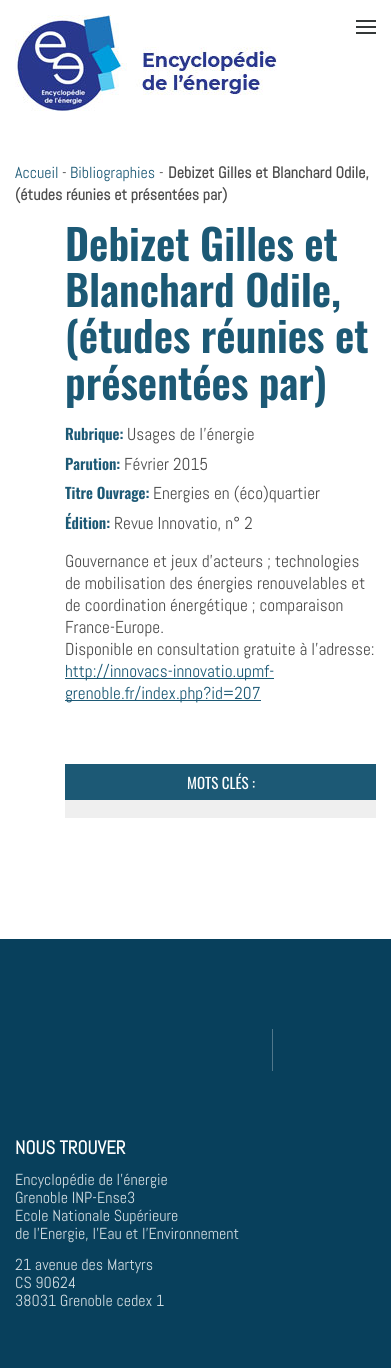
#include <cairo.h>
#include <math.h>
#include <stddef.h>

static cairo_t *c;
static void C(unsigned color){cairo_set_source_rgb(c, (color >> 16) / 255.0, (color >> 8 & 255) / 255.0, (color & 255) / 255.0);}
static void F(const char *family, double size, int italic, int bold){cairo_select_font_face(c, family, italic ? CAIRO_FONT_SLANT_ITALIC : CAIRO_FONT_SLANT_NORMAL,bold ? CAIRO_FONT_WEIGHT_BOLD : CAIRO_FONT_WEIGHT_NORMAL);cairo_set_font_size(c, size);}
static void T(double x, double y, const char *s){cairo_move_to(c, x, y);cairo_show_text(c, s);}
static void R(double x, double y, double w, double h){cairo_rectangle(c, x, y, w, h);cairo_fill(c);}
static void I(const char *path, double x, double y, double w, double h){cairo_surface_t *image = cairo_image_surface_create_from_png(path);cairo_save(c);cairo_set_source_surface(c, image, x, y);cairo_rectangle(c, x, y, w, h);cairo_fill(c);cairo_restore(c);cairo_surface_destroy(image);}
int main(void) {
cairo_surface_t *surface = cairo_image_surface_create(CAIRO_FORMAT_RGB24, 391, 1368);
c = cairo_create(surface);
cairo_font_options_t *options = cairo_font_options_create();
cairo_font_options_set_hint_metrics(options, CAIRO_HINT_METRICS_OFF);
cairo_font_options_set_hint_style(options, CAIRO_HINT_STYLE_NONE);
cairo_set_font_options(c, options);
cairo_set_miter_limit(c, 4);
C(0xffffff);
cairo_paint(c);
I("1.png",15,15,262,96);
C(0x343838);
R(356,20,20,2);
R(356,26,20,2);
R(356,32,20,2);
F("Abel",16,0,0);
C(0x1c5975);
T(15,178,"Accueil");
C(0x4c4c4c);
T(62,178,"-");
C(0x1c5975);
T(70,178,"Bibliographies");
C(0x4c4c4c);
T(159,178,"-");
F("Abel",16,0,1);
T(168,178,"Debizet Gilles et Blanchard Odile,");
T(15,200,"(études réunies et présentées par)");
F("Oswald SemiBold",42,0,0);
C(0x1c5975);
T(65,261,"Debizet Gilles et");
T(65,307,"Blanchard Odile,");
T(65,353,"(études réunies et");
T(65,400,"présentées par)");
F("Oswald SemiBold",15,0,0);
T(65,440,"Rubrique:");
F("Abel",17.3,0,0);
C(0x4c4c4c);
T(127,440,"Usages de l’énergie");
F("Oswald SemiBold",15,0,0);
C(0x1c5975);
T(65,470,"Parution:");
F("Abel",17.3,0,0);
C(0x4c4c4c);
T(124,470,"Février 2015");
F("Oswald SemiBold",15,0,0);
C(0x1c5975);
T(65,499,"Titre Ouvrage:");
F("Abel",17.3,0,0);
C(0x4c4c4c);
T(153,499,"Energies en (éco)quartier");
F("Oswald SemiBold",15,0,0);
C(0x1c5975);
T(65,529,"Édition:");
F("Abel",17.3,0,0);
C(0x4c4c4c);
T(114,529,"Revue Innovatio, n° 2");
T(65,567,"Gouvernance et jeux d’acteurs ; technologies");
T(65,589,"de mobilisation des énergies renouvelables et");
T(65,611,"de coordination énergétique ; comparaison");
T(65,633,"France-Europe.");
T(65,655,"Disponible en consultation gratuite à l’adresse:");
C(0x1c5975);
R(65,678,209,1);
T(65,677,"http://innovacs-innovatio.upmf-");
R(65,700,196,1);
T(65,699,"grenoble.fr/index.php?id=207");
C(0xefefef);
R(65,800,311,18);
C(0x1c5975);
R(65,764,311,36);
F("Oswald",15,0,0);
C(0xffffff);
T(187,789,"MOTS CLÉS :");
C(0x08405c);
R(0,939,391,429);
C(0x50778b);
R(272,1029,1,42);
F("Abel",18.75,0,1);
C(0xffffff);
T(15,1154,"NOUS TROUVER");
F("Abel",16,0,0);
C(0xd0dbe0);
T(15,1185,"Encyclopédie de l'énergie");
T(15,1203,"Grenoble INP-Ense3");
T(15,1221,"Ecole Nationale Supérieure");
T(15,1239,"de l'Energie, l'Eau et l'Environnement");
T(15,1270,"21 avenue des Martyrs");
T(15,1288,"CS 90624");
T(15,1306,"38031 Grenoble cedex 1");
cairo_surface_write_to_png(surface, "o.png");
cairo_font_options_destroy(options);
cairo_destroy(c);
cairo_surface_destroy(surface);
return 0;
}
